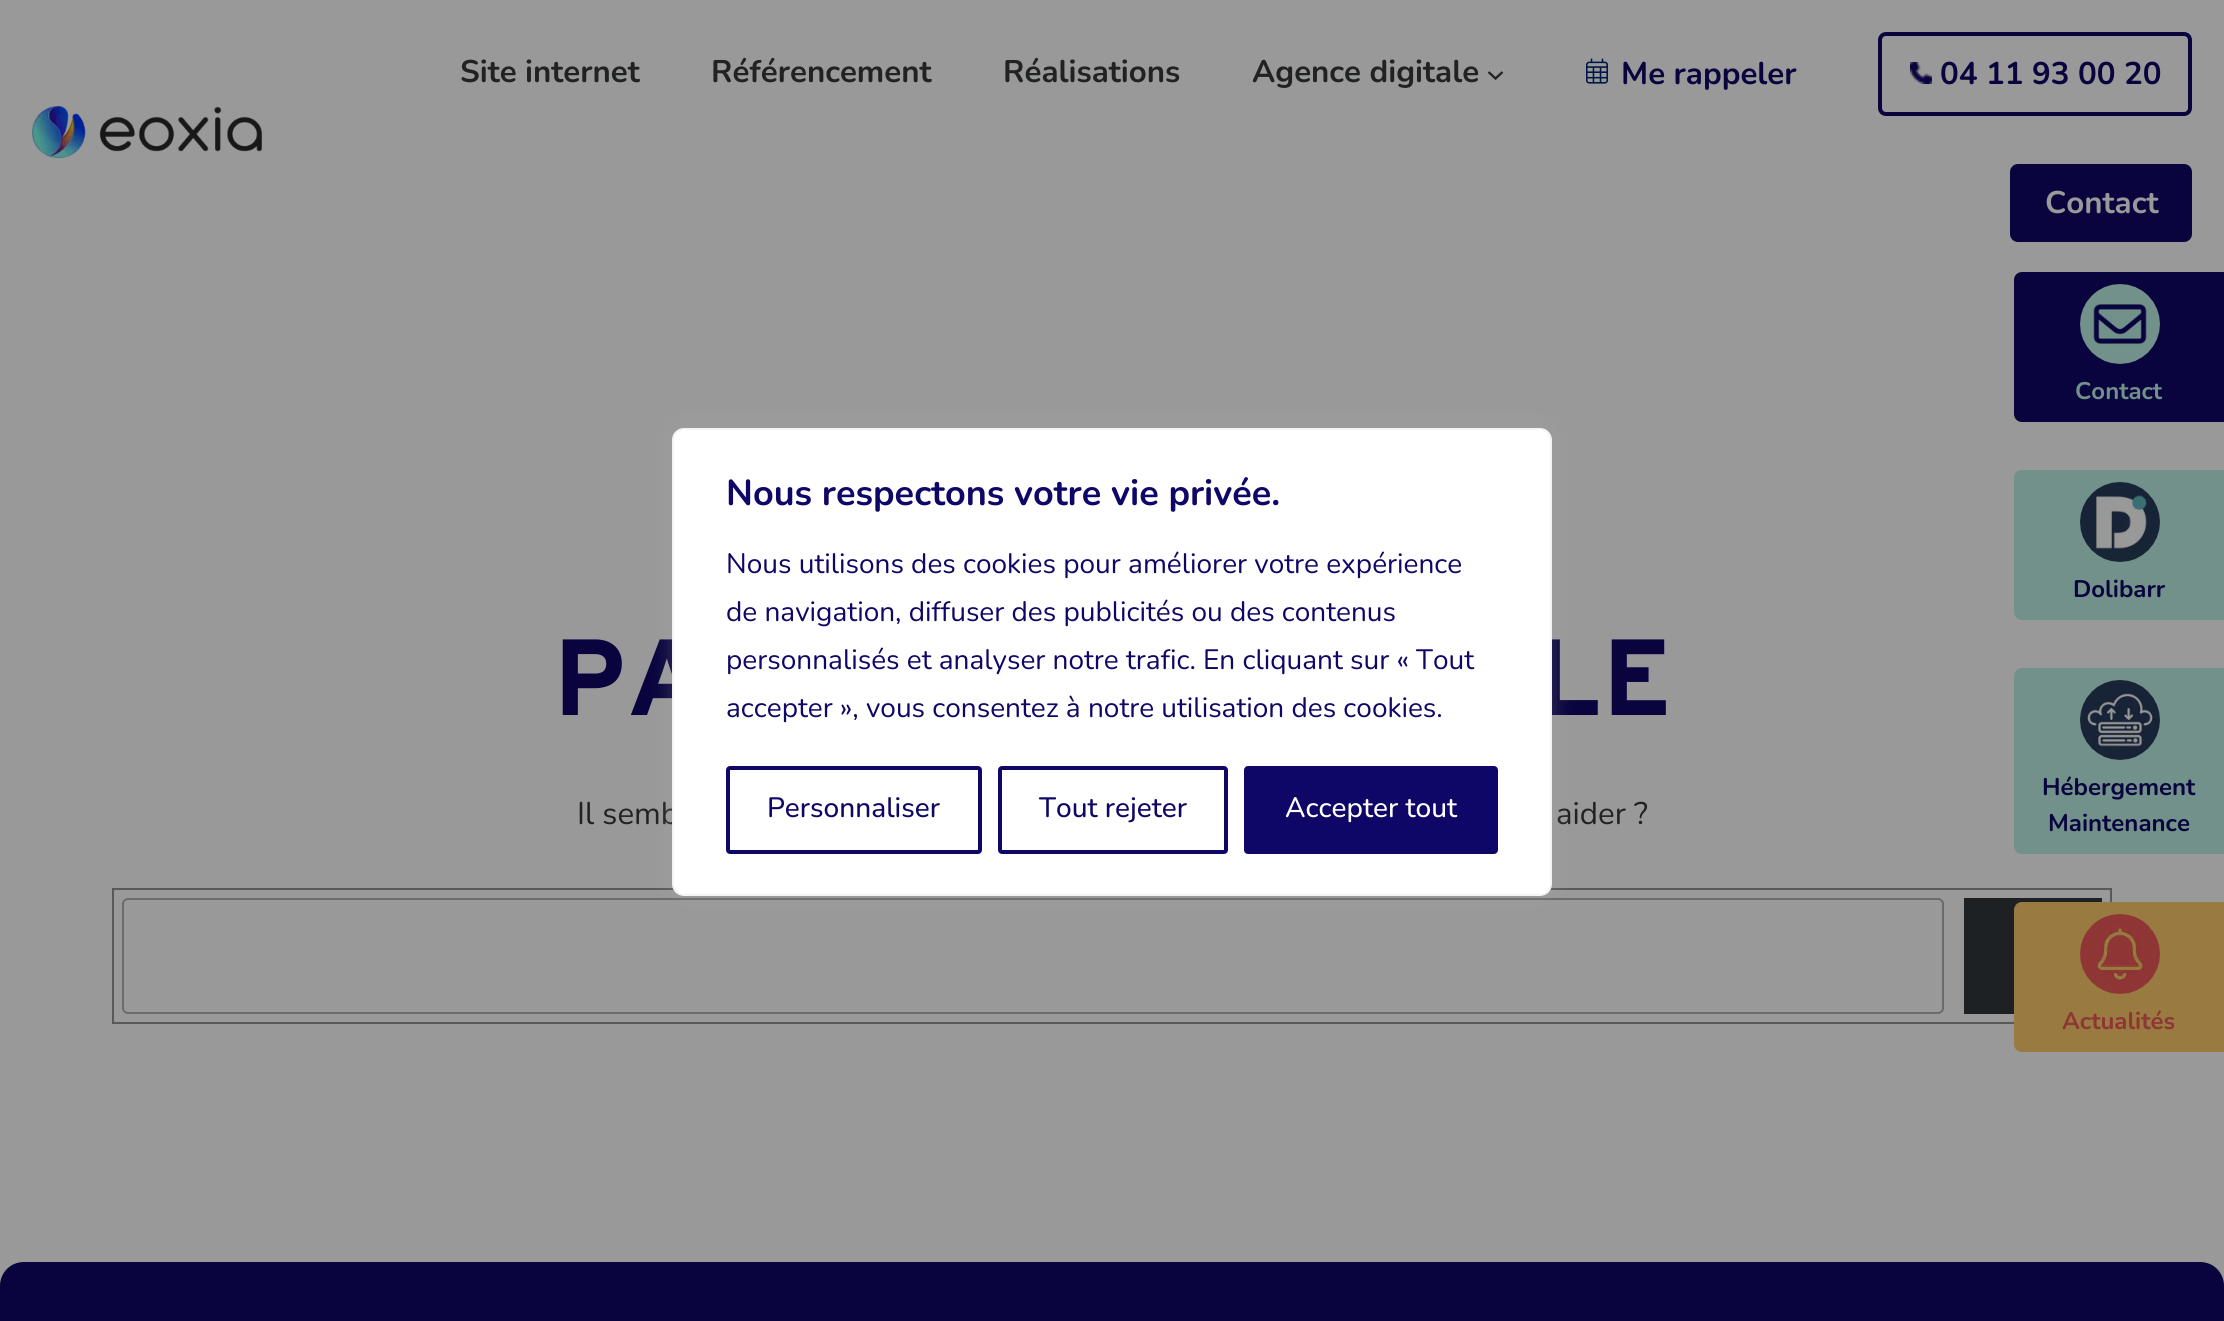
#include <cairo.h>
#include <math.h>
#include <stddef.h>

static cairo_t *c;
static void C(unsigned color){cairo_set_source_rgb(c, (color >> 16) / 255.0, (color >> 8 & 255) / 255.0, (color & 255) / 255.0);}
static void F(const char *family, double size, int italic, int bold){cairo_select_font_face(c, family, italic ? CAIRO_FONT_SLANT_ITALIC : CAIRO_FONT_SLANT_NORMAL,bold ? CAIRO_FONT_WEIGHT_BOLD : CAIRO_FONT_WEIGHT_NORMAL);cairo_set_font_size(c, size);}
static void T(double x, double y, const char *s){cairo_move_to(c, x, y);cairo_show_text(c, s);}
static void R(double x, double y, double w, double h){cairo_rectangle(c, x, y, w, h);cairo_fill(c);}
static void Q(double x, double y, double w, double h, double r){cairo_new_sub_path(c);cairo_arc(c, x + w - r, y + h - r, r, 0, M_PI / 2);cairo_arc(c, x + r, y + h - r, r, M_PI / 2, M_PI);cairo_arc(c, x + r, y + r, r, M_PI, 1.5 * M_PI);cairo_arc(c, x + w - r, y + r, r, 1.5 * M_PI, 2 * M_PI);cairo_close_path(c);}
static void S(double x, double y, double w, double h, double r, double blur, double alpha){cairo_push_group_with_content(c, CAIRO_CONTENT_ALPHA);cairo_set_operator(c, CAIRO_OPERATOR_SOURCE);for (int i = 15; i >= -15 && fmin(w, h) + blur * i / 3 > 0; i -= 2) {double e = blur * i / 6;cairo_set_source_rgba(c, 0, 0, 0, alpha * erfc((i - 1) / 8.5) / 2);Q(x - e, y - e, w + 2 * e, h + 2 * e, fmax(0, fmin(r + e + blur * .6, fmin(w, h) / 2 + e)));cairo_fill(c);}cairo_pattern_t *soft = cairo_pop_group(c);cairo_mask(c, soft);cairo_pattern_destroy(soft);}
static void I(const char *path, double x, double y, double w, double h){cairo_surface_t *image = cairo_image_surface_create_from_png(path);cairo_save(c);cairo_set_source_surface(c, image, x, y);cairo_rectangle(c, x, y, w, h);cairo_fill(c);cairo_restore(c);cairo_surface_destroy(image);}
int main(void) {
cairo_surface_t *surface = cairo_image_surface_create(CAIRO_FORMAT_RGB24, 2224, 1321);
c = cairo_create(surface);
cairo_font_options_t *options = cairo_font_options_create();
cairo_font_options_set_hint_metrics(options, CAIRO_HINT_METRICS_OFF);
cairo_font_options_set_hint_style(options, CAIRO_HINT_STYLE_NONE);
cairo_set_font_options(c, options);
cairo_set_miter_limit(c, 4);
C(0x999999);
cairo_paint(c);
I("1.png",32,106,230,52);
F("Nunito",31.25,0,1);
C(0x212223);
T(460,82,"Site internet");
T(711,82,"Référencement");
T(1003,82,"Réalisations");
T(1252,82,"Agence digitale");
cairo_new_path(c);
cairo_move_to(c,1488.5,72);
cairo_line_to(c,1495.5,78.5);
cairo_line_to(c,1502.5,72);
cairo_set_line_width(c,2.3);
cairo_stroke(c);
I("2.png",1586,58,22,26);
C(0x09043e);
T(1621,84,"Me rappeler");
Q(1880,34,310,80,6);
cairo_set_line_width(c,4);
cairo_stroke(c);
I("3.png",1910,62,22,22);
T(1940,84,"04 11 93 00 20");
Q(2010,164,182,78,8);
cairo_fill(c);
C(0x999999);
T(2045,213,"Contact");
F("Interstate",108,0,1);
C(0x09043e);
T(553,715,"PA");
T(1535,715,"LE");
F("Nunito",31.25,0,0);
C(0x212223);
T(577,824,"Il semb");
T(1556,824,"aider ?");
cairo_rectangle(c,113,889,1998,134);
C(0x595959);
cairo_set_line_width(c,2);
cairo_stroke(c);
Q(123,899,1820,114,5);
C(0x6b6b6b);
cairo_stroke(c);
C(0x1e2124);
R(1964,898,138,116);
C(0x09043e);
cairo_new_path(c);
cairo_move_to(c,24,1262);
cairo_line_to(c,2200,1262);
cairo_curve_to(c,2213.5,1262,2224,1272.5,2224,1286);
cairo_line_to(c,2224,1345);
cairo_line_to(c,0,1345);
cairo_line_to(c,0,1286);
cairo_curve_to(c,0,1272.5,10.5,1262,24,1262);
cairo_close_path(c);
cairo_fill(c);
cairo_new_path(c);
cairo_move_to(c,2022,272);
cairo_line_to(c,2224,272);
cairo_line_to(c,2224,422);
cairo_line_to(c,2022,422);
cairo_curve_to(c,2017.5,422,2014,418.5,2014,414);
cairo_line_to(c,2014,280);
cairo_curve_to(c,2014,275.5,2017.5,272,2022,272);
cairo_close_path(c);
cairo_fill(c);
I("4.png",2080,284,80,80);
F("Nunito",24,0,1);
C(0x71918a);
T(2075,399,"Contact");
cairo_new_path(c);
cairo_move_to(c,2022,470);
cairo_line_to(c,2224,470);
cairo_line_to(c,2224,620);
cairo_line_to(c,2022,620);
cairo_curve_to(c,2017.5,620,2014,616.5,2014,612);
cairo_line_to(c,2014,478);
cairo_curve_to(c,2014,473.5,2017.5,470,2022,470);
cairo_close_path(c);
cairo_fill(c);
I("5.png",2080,482,80,80);
C(0x09043e);
T(2073,597,"Dolibarr");
C(0x71918a);
cairo_new_path(c);
cairo_move_to(c,2022,668);
cairo_line_to(c,2224,668);
cairo_line_to(c,2224,854);
cairo_line_to(c,2022,854);
cairo_curve_to(c,2017.5,854,2014,850.5,2014,846);
cairo_line_to(c,2014,676);
cairo_curve_to(c,2014,671.5,2017.5,668,2022,668);
cairo_close_path(c);
cairo_fill(c);
I("6.png",2080,680,80,80);
C(0x09043e);
T(2042,795,"Hébergement");
T(2048,831,"Maintenance");
C(0x997a40);
cairo_new_path(c);
cairo_move_to(c,2022,902);
cairo_line_to(c,2224,902);
cairo_line_to(c,2224,1052);
cairo_line_to(c,2022,1052);
cairo_curve_to(c,2017.5,1052,2014,1048.5,2014,1044);
cairo_line_to(c,2014,910);
cairo_curve_to(c,2014,905.5,2017.5,902,2022,902);
cairo_close_path(c);
cairo_fill(c);
I("7.png",2080,914,80,80);
C(0x8e3535);
T(2062,1029,"Actualités");
C(0xacabab);
S(672,426,880,468,12,10,.3);
C(0xffffff);
Q(673,429,878,466,11);
cairo_fill_preserve(c);
C(0xf4f4f4);
cairo_stroke(c);
F("Nunito",36,0,1);
C(0x0f0767);
T(726,505,"Nous respectons votre vie privée.");
F("Nunito",28,0,0);
T(726,573,"Nous utilisons des cookies pour améliorer votre expérience");
T(726,621,"de navigation, diffuser des publicités ou des contenus");
T(726,669,"personnalisés et analyser notre trafic. En cliquant sur « Tout");
T(726,717,"accepter », vous consentez à notre utilisation des cookies.");
Q(728,768,252,84,2);
cairo_set_line_width(c,4);
cairo_stroke(c);
F("Nunito Medium",28,0,0);
T(767,817,"Personnaliser");
Q(1000,768,226,84,2);
cairo_stroke(c);
T(1039,817,"Tout rejeter");
Q(1246,768,250,84,2);
cairo_fill_preserve(c);
cairo_stroke(c);
C(0xffffff);
T(1285,817,"Accepter tout");
cairo_surface_write_to_png(surface, "o.png");
cairo_font_options_destroy(options);
cairo_destroy(c);
cairo_surface_destroy(surface);
return 0;
}
